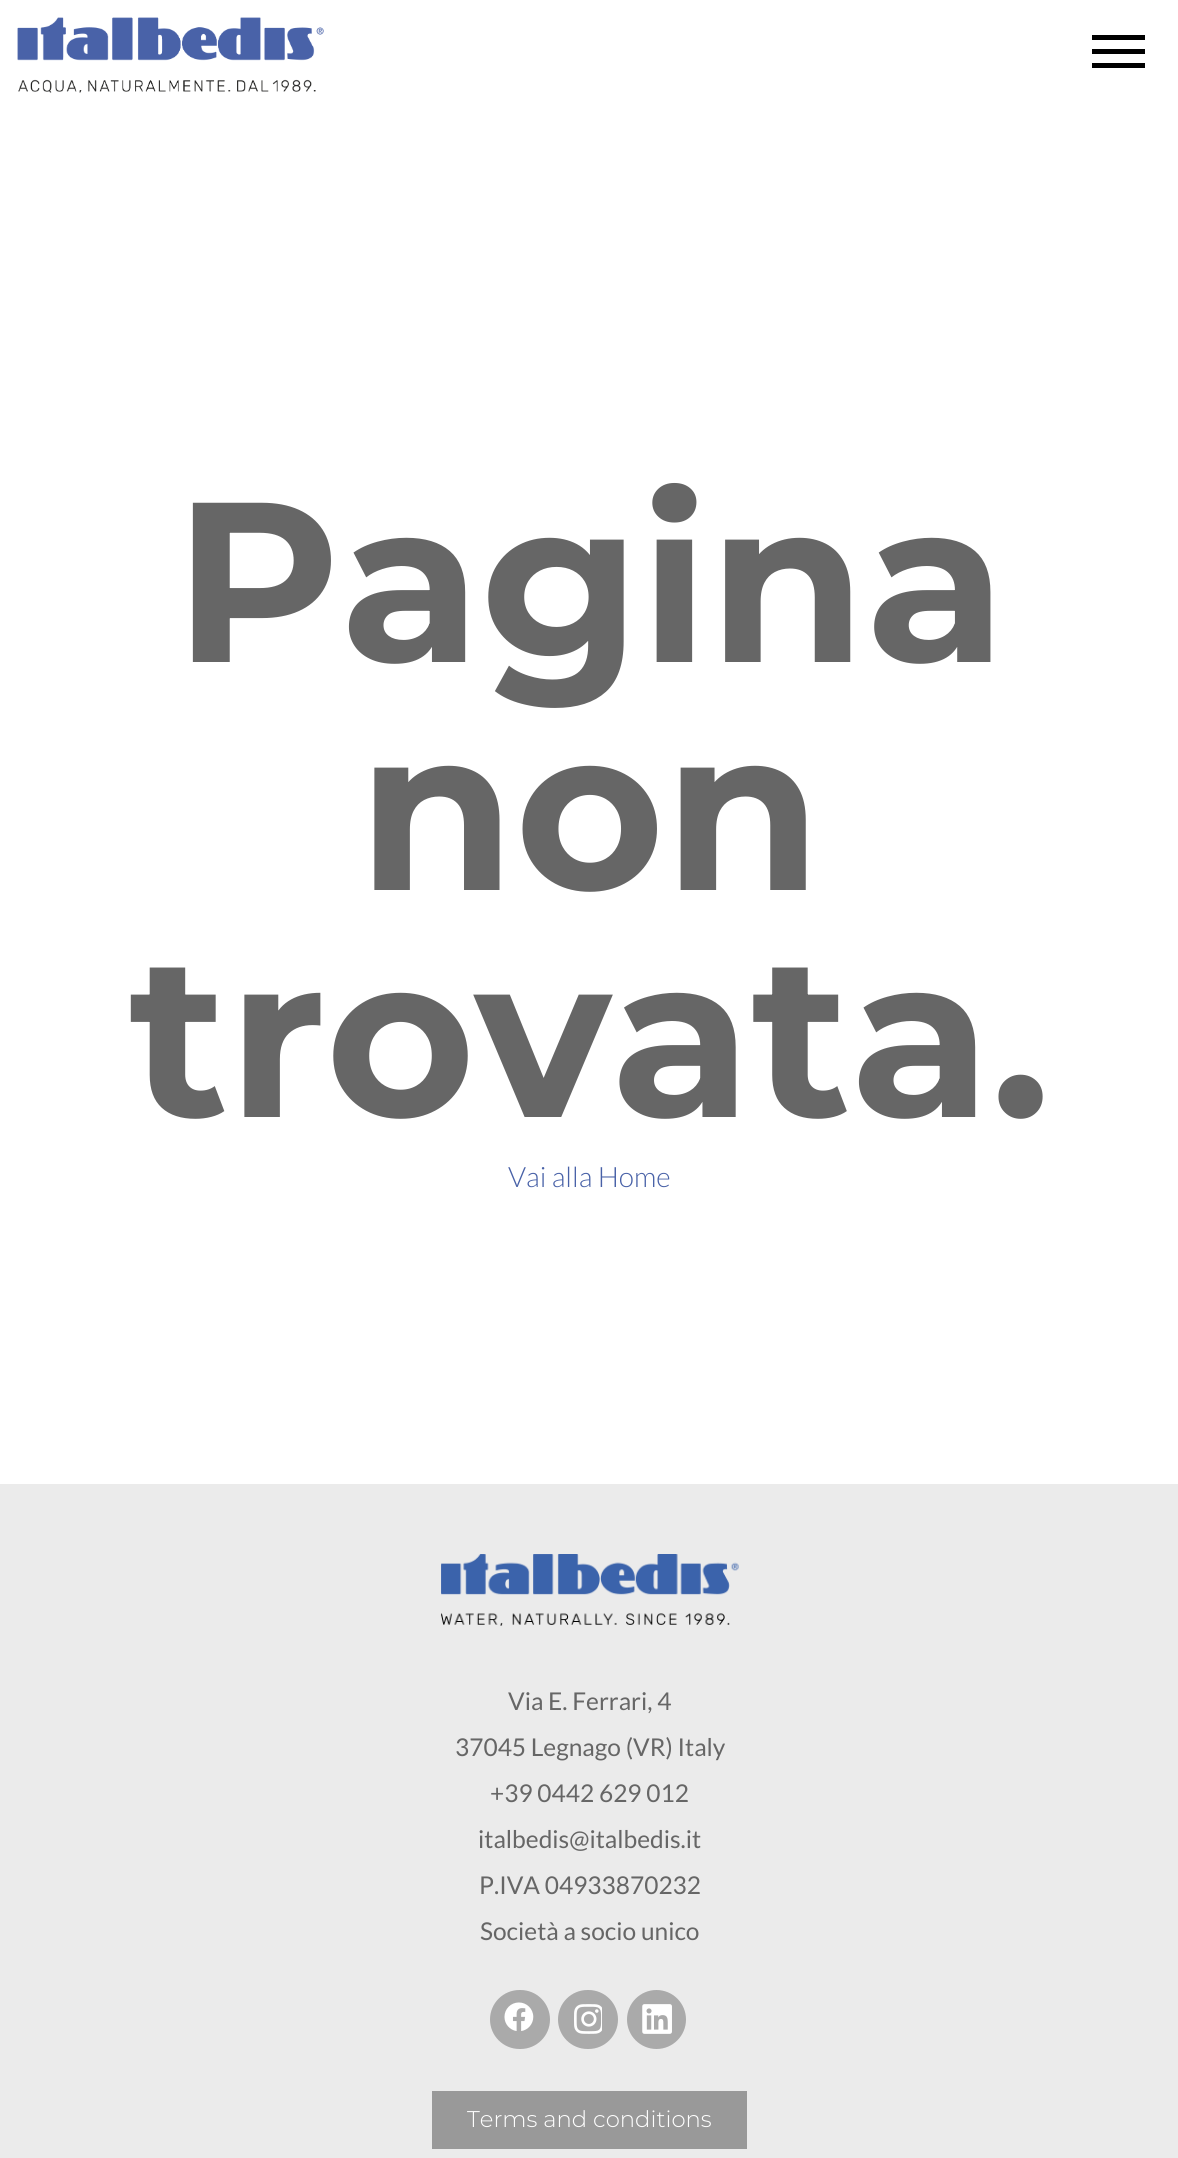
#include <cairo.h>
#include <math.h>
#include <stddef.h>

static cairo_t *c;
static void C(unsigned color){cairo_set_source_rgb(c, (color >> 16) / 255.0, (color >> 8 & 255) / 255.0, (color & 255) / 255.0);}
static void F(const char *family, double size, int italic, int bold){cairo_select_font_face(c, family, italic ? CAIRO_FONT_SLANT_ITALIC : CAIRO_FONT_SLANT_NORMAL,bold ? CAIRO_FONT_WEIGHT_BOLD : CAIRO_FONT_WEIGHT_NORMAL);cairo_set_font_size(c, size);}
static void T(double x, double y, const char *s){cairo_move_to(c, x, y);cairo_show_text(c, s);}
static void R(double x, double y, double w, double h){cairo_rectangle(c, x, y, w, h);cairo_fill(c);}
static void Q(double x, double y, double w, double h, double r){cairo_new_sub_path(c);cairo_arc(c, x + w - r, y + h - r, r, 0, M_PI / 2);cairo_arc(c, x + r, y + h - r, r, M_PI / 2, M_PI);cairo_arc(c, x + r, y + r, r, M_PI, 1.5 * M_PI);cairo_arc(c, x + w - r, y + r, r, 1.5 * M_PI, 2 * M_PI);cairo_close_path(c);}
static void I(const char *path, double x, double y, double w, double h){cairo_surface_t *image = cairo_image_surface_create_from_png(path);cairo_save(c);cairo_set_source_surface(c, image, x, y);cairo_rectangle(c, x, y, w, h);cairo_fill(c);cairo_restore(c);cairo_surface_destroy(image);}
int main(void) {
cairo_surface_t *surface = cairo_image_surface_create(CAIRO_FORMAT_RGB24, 1178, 2158);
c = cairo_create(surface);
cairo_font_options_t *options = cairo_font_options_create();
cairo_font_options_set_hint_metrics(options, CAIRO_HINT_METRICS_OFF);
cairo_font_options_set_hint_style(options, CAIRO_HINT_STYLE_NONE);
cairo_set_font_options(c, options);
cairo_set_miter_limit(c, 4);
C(0xffffff);
cairo_paint(c);
I("1.png",17,17,307,76);
C(0x000000);
R(1092,49,53,5);
R(1092,35,53,5);
R(1092,63,53,5);
F("Montserrat",227.5,0,1);
C(0x666666);
T(174,662,"Pagina");
T(358,890,"non");
T(129,1117,"trovata.");
F("Lato Light",28,0,0);
C(0x4861a7);
T(508,1187,"Vai alla Home");
C(0xebebeb);
R(0,1484,1178,674);
I("2.png",441,1554,298,72);
F("Lato",24.5,0,0);
C(0x666666);
T(508,1710,"Via E. Ferrari, 4");
T(455,1756,"37045 Legnago (VR) Italy");
T(490,1802,"+39 0442 629 012");
T(478,1848,"italbedis@italbedis.it");
T(479,1894,"P.IVA 04933870232");
T(480,1940,"Società a socio unico");
C(0xaaaaaa);
Q(490,1990,60,59,29.5);
cairo_fill(c);
I("3.png",504,2002,30,29);
Q(558,1990,60,59,29.5);
cairo_fill(c);
I("4.png",574,2004,28,30);
cairo_arc(c,656.5,2019.5,29.5,0,2 * M_PI);
cairo_fill(c);
I("5.png",642,2004,30,30);
C(0x999999);
R(432,2091,315,58);
F("Montserrat Light",22.75,0,0);
C(0xffffff);
T(467,2127,"Terms and conditions");
cairo_surface_write_to_png(surface, "o.png");
cairo_font_options_destroy(options);
cairo_destroy(c);
cairo_surface_destroy(surface);
return 0;
}
